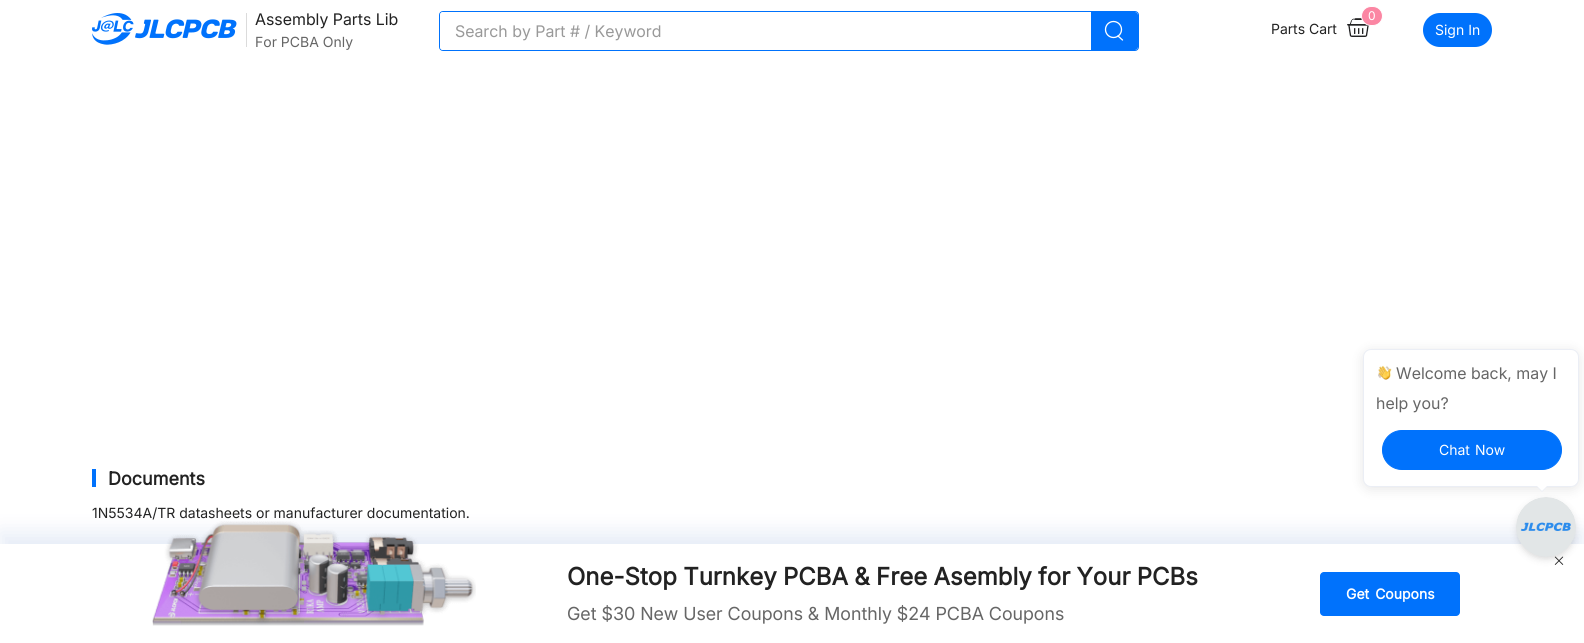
#include <cairo.h>
#include <math.h>
#include <stddef.h>

static cairo_t *c;
static void C(unsigned color){cairo_set_source_rgb(c, (color >> 16) / 255.0, (color >> 8 & 255) / 255.0, (color & 255) / 255.0);}
static void F(const char *family, double size, int italic, int bold){cairo_select_font_face(c, family, italic ? CAIRO_FONT_SLANT_ITALIC : CAIRO_FONT_SLANT_NORMAL,bold ? CAIRO_FONT_WEIGHT_BOLD : CAIRO_FONT_WEIGHT_NORMAL);cairo_set_font_size(c, size);}
static void T(double x, double y, const char *s){cairo_move_to(c, x, y);cairo_show_text(c, s);}
static void L(double x, double y, const char *s, double letter, double word){cairo_move_to(c, x, y);while (*s) {char ch[5] = {0};int n = 0;do ch[n++] = *s++; while ((*s & 0xC0) == 0x80);cairo_show_text(c, ch);cairo_rel_move_to(c, letter + word * (*ch == ' '), 0);}}
static void R(double x, double y, double w, double h){cairo_rectangle(c, x, y, w, h);cairo_fill(c);}
static void Q(double x, double y, double w, double h, double r){cairo_new_sub_path(c);cairo_arc(c, x + w - r, y + h - r, r, 0, M_PI / 2);cairo_arc(c, x + r, y + h - r, r, M_PI / 2, M_PI);cairo_arc(c, x + r, y + r, r, M_PI, 1.5 * M_PI);cairo_arc(c, x + w - r, y + r, r, 1.5 * M_PI, 2 * M_PI);cairo_close_path(c);}
static void S(double x, double y, double w, double h, double r, double blur, double alpha){cairo_push_group_with_content(c, CAIRO_CONTENT_ALPHA);cairo_set_operator(c, CAIRO_OPERATOR_SOURCE);for (int i = 15; i >= -15 && fmin(w, h) + blur * i / 3 > 0; i -= 2) {double e = blur * i / 6;cairo_set_source_rgba(c, 0, 0, 0, alpha * erfc((i - 1) / 8.5) / 2);Q(x - e, y - e, w + 2 * e, h + 2 * e, fmax(0, fmin(r + e + blur * .6, fmin(w, h) / 2 + e)));cairo_fill(c);}cairo_pattern_t *soft = cairo_pop_group(c);cairo_mask(c, soft);cairo_pattern_destroy(soft);}
static void I(const char *path, double x, double y, double w, double h){cairo_surface_t *image = cairo_image_surface_create_from_png(path);cairo_save(c);cairo_set_source_surface(c, image, x, y);cairo_rectangle(c, x, y, w, h);cairo_fill(c);cairo_restore(c);cairo_surface_destroy(image);}
int main(void) {
cairo_surface_t *surface = cairo_image_surface_create(CAIRO_FORMAT_RGB24, 1584, 643);
c = cairo_create(surface);
cairo_font_options_t *options = cairo_font_options_create();
cairo_font_options_set_hint_metrics(options, CAIRO_HINT_METRICS_OFF);
cairo_font_options_set_hint_style(options, CAIRO_HINT_STYLE_NONE);
cairo_set_font_options(c, options);
cairo_set_miter_limit(c, 4);
C(0xffffff);
cairo_paint(c);
I("1.png",92,13,145,32);
C(0xdbdbdb);
R(246,13,1,34);
F("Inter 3",16,0,0);
C(0x222222);
T(255,25,"Assembly Parts Lib");
F("Inter",14,0,0);
C(0x666666);
T(255,47,"For PCBA Only");
Q(439.5,11.5,699,39,3.5);
C(0x0072fc);
cairo_set_line_width(c,1);
cairo_stroke(c);
cairo_save(c);
Q(440,12,698,38,3);
cairo_clip(c);
C(0xffffff);
Q(440,11,651,40,4);
cairo_fill(c);
cairo_restore(c);
F("Inter 3",16,0,0);
C(0x999999);
T(455,37,"Search by Part # / Keyword");
C(0x0072fc);
cairo_new_path(c);
cairo_move_to(c,1091,12);
cairo_line_to(c,1135,12);
cairo_curve_to(c,1136.5,12,1138,13.5,1138,15);
cairo_line_to(c,1138,47);
cairo_curve_to(c,1138,48.5,1136.5,50,1135,50);
cairo_line_to(c,1091,50);
cairo_close_path(c);
cairo_fill(c);
cairo_arc(c,1113.5,29.5,8,0,2 * M_PI);
C(0xffffff);
cairo_set_line_width(c,1.3);
cairo_stroke(c);
cairo_new_path(c);
cairo_move_to(c,1118,36);
cairo_line_to(c,1122.5,40);
cairo_set_line_cap(c,CAIRO_LINE_CAP_ROUND);
cairo_stroke(c);
I("2.png",1347,18,23,19);
C(0xfb86a3);
Q(1361.5,6.5,21,19,9.5);
cairo_fill_preserve(c);
C(0xffffff);
cairo_set_line_width(c,1);
cairo_set_line_cap(c,CAIRO_LINE_CAP_BUTT);
cairo_stroke(c);
F("Inter",12,0,0);
T(1368,20,"0");
F("Inter",14,0,0);
C(0x222222);
T(1271,34,"Parts Cart");
C(0x0072fc);
Q(1423,13,69,34,17);
cairo_fill(c);
C(0xffffff);
T(1435,35,"Sign In");
C(0x0072fc);
R(92,469,4,18);
F("Inter",18,0,1);
C(0x222222);
T(108,485,"Documents");
F("Inter",14,0,0);
T(92,518,"1N5534A/TR datasheets or manufacturer documentation.");
C(0x4e7ac2);
S(0,532,1584,99,0,10,.14);
C(0xffffff);
R(0,544,1584,99);
I("3.png",1554,556,10,9);
I("4.png",152,521,324,105);
F("Inter",24,0,1);
C(0x222222);
L(567,585,"One-Stop Turnkey PCBA & Free Asembly for Your PCBs",0,-.5);
F("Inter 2",18,0,0);
C(0x666666);
T(567,620,"Get $30 New User Coupons & Monthly $24 PCBA Coupons");
C(0x0072fc);
Q(1320,572,140,44,4);
cairo_fill(c);
F("Inter",14,0,1);
C(0xffffff);
L(1346,599,"Get Coupons",0,2);
C(0x000000);
S(1363,351,216,138,8,6,.1);
C(0xffffff);
Q(1363.5,349.5,215,137,7.5);
cairo_fill_preserve(c);
C(0xebeef5);
cairo_stroke(c);
cairo_new_path(c);
cairo_move_to(c,1536,486);
cairo_line_to(c,1548,486);
cairo_line_to(c,1542,492);
cairo_close_path(c);
cairo_fill(c);
C(0xffffff);
cairo_new_path(c);
cairo_move_to(c,1536,485);
cairo_line_to(c,1548,485);
cairo_line_to(c,1542,491);
cairo_close_path(c);
cairo_fill(c);
C(0x000000);
S(1518,502,56,56,28,4,.18);
I("5.png",1516,497,60,60);
I("6.png",1378,365,14,15);
F("Inter 3",16,0,0);
C(0x666666);
T(1396,379,"Welcome back, may I");
T(1376,409,"help you?");
C(0x0072fc);
Q(1382.5,430.5,179,39,19.5);
cairo_fill_preserve(c);
cairo_stroke(c);
F("Inter",14,0,0);
C(0xffffff);
L(1439,455,"Chat Now",0,1);
cairo_surface_write_to_png(surface, "o.png");
cairo_font_options_destroy(options);
cairo_destroy(c);
cairo_surface_destroy(surface);
return 0;
}
